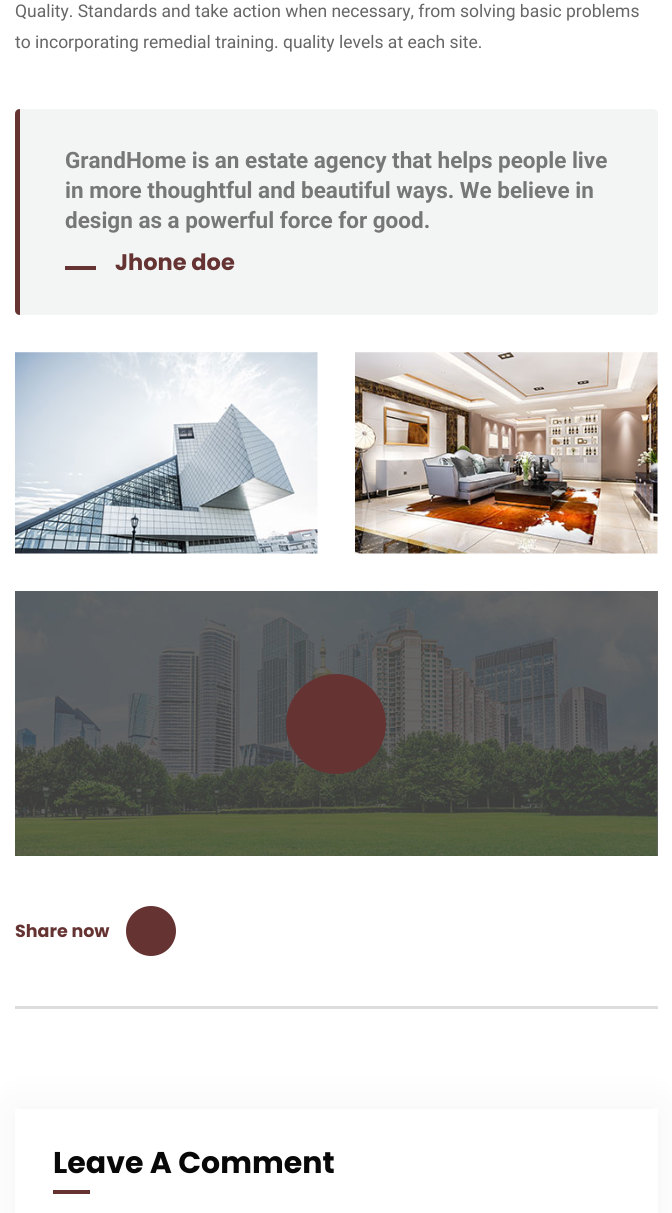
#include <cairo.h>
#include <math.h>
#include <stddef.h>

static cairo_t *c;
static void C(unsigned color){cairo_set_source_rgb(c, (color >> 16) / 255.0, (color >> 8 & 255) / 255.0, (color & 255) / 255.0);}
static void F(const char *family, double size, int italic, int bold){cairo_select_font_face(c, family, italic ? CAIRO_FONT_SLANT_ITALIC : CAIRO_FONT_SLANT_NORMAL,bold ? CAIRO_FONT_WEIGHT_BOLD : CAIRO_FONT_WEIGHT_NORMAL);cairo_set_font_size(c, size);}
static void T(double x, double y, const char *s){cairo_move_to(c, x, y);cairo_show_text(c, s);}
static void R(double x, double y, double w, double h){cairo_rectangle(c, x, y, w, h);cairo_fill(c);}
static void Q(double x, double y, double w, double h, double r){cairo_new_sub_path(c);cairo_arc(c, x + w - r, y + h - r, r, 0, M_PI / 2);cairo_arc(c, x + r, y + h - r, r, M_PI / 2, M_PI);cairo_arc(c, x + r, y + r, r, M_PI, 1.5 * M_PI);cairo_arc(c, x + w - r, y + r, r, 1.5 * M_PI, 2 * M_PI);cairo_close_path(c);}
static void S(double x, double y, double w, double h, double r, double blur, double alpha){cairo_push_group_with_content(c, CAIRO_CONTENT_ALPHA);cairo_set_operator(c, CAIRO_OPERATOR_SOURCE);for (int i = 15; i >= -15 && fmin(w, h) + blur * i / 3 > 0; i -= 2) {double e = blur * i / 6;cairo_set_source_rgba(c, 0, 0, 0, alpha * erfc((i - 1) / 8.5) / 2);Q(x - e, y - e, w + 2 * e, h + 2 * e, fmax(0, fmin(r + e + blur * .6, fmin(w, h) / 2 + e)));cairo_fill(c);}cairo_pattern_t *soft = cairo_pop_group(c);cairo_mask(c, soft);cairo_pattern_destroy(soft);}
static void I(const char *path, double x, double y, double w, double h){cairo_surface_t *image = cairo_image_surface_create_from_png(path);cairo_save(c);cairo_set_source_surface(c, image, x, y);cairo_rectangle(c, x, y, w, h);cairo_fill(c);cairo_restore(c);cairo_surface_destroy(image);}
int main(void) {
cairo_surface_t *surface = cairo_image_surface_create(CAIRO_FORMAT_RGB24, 672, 1213);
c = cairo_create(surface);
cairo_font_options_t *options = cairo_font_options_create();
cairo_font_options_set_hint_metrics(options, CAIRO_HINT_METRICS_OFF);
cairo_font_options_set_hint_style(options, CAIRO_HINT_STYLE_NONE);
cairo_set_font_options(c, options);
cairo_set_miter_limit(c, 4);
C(0xffffff);
cairo_paint(c);
C(0x666666);
R(657,591,1,265);
F("Roboto",17.5,0,0);
T(15,17,"Quality. Standards and take action when necessary, from solving basic problems");
T(15,48,"to incorporating remedial training. quality levels at each site.");
C(0xf3f4f4);
Q(15,109,643,206,5);
cairo_fill(c);
C(0x663333);
cairo_new_path(c);
cairo_move_to(c,20,109);
cairo_line_to(c,20,315);
cairo_curve_to(c,17,315,15,313,15,310);
cairo_line_to(c,15,114);
cairo_curve_to(c,15,111,17,109,20,109);
cairo_close_path(c);
cairo_fill(c);
F("Roboto",22.5,0,1);
C(0x777777);
T(65,168,"GrandHome is an estate agency that helps people live");
T(65,198,"in more thoughtful and beautiful ways. We believe in");
T(65,228,"design as a powerful force for good.");
C(0x663333);
R(65,266,31,4);
F("Poppins",22.5,0,1);
T(115,270,"Jhone doe");
I("1.png",15,352,303,202);
I("2.png",355,352,303,202);
I("3.png",15,591,643,265);
cairo_arc(c,336,724,50,0,2 * M_PI);
cairo_fill(c);
F("Poppins",17.5,0,1);
T(15,937,"Share now");
cairo_new_path(c);
cairo_arc(c,151,931,25,0,2 * M_PI);
cairo_fill(c);
C(0xdddddd);
R(15,1006,643,3);
C(0x0c0c0c);
S(15,1109,643,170,0,22,.05);
C(0xffffff);
R(15,1109,643,104);
F("Poppins",30,0,1);
C(0x080808);
T(53,1173,"Leave A Comment");
C(0x663333);
R(53,1190,37,4);
cairo_surface_write_to_png(surface, "o.png");
cairo_font_options_destroy(options);
cairo_destroy(c);
cairo_surface_destroy(surface);
return 0;
}
